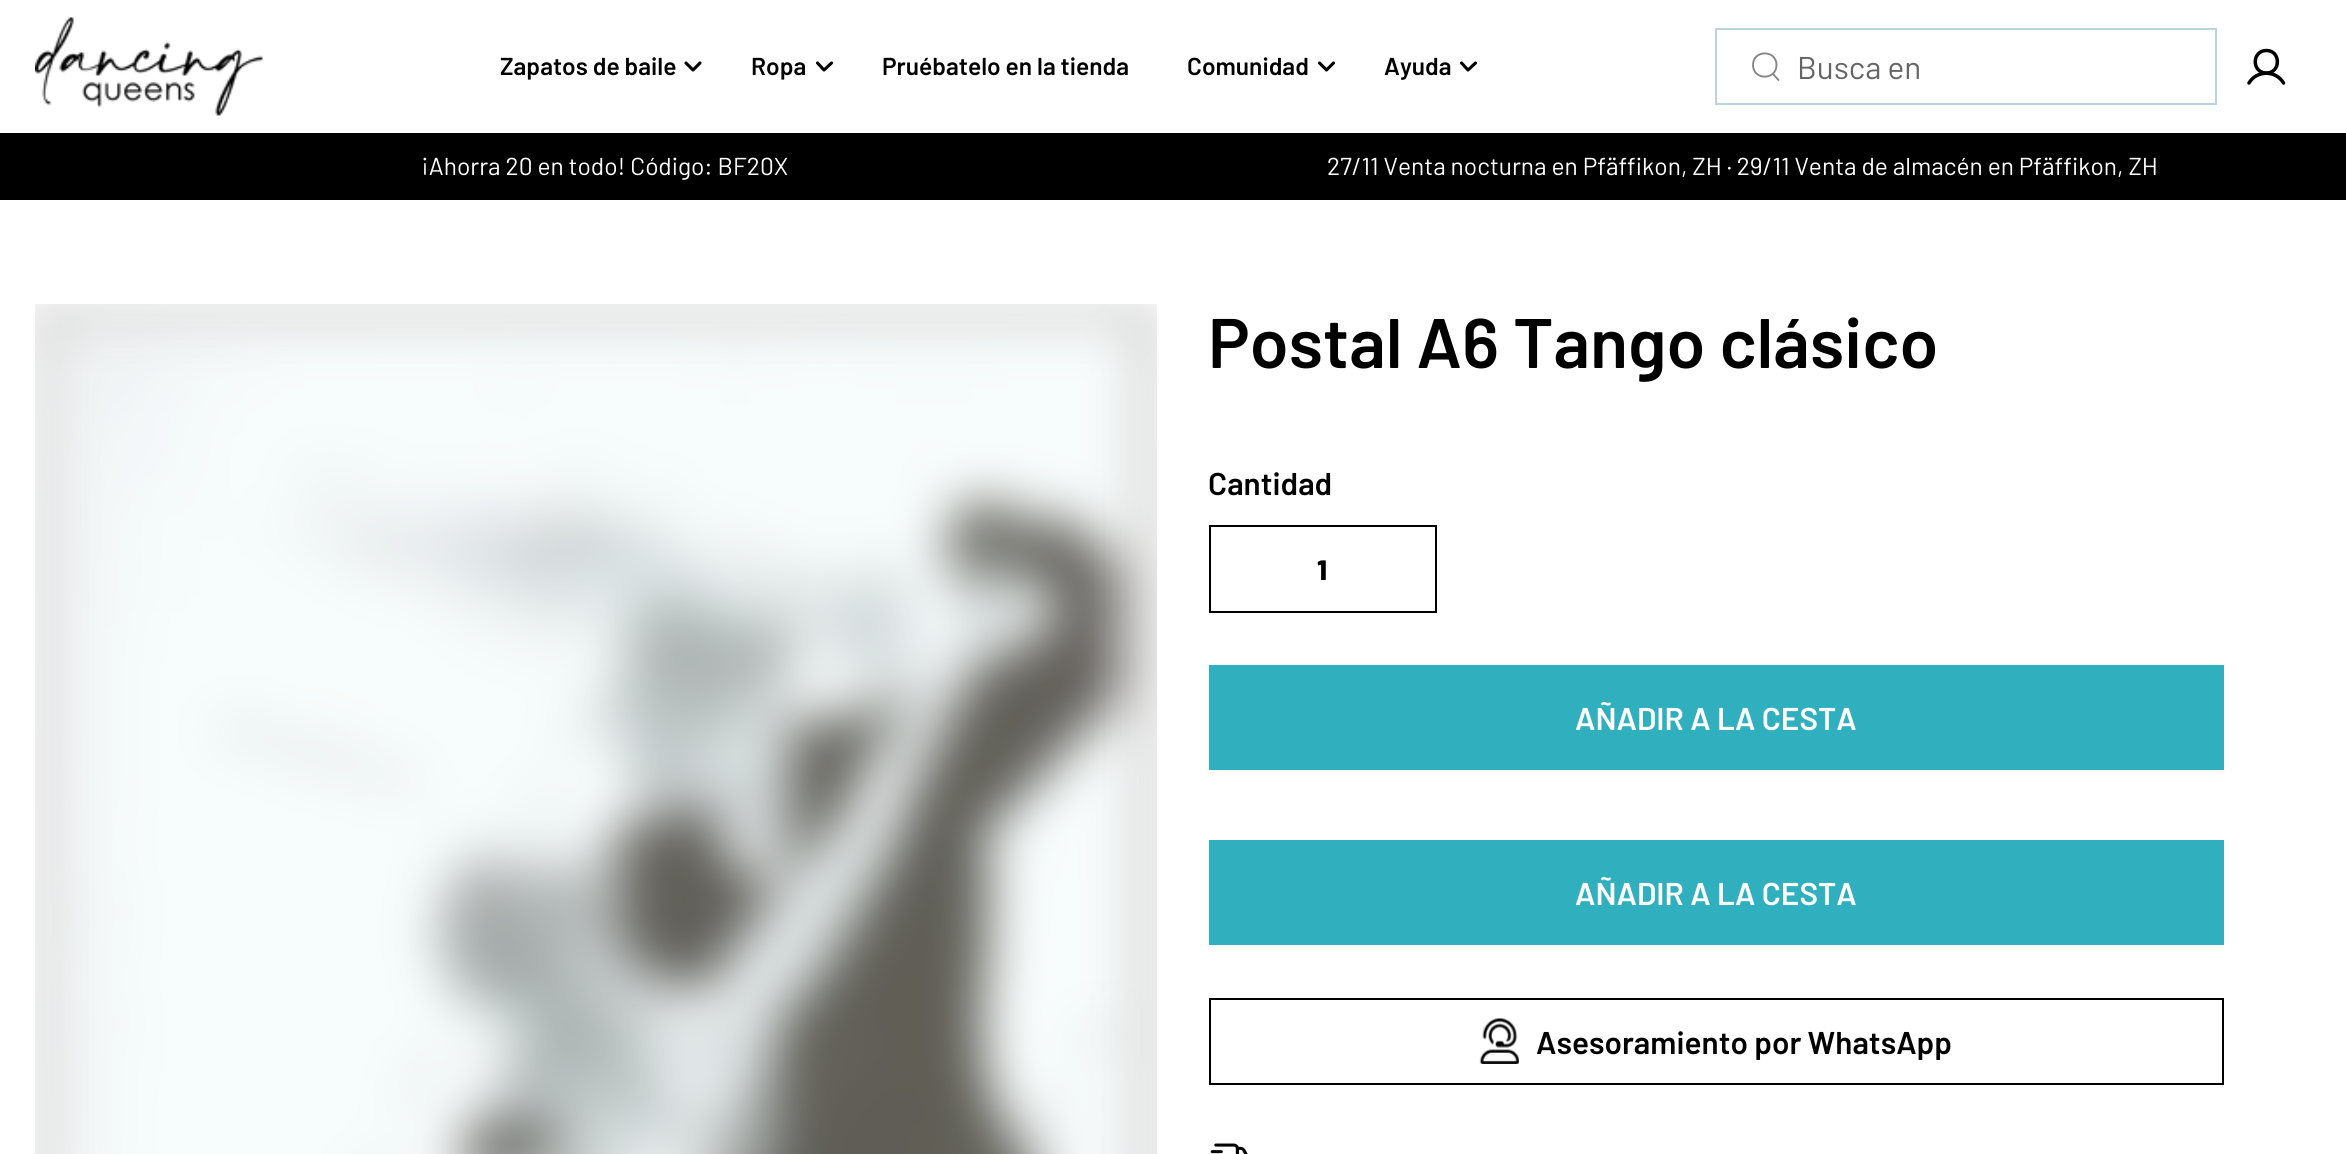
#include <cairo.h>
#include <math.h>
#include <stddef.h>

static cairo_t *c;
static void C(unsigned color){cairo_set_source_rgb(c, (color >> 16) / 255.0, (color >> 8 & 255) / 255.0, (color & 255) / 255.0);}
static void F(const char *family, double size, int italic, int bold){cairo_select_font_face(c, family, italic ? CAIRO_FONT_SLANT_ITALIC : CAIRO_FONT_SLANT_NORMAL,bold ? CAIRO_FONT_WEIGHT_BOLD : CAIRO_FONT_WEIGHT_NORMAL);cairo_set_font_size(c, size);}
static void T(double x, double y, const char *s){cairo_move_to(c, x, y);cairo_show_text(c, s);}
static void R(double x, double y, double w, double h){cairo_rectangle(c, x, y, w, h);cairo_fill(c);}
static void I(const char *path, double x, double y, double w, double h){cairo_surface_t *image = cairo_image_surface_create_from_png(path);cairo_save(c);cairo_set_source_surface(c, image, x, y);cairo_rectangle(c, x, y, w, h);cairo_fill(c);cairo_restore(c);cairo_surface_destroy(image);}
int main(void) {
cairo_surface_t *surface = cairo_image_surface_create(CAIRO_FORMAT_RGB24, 2346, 1154);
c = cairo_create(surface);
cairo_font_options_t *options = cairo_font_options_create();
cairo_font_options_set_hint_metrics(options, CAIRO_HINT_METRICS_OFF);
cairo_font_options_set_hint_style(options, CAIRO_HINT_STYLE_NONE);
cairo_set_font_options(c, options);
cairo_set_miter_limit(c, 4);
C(0xffffff);
cairo_paint(c);
I("1.png",35,17,228,99);
F("Barlow SemiBold",24.5,0,0);
C(0x000000);
T(500,75,"Zapatos de baile");
cairo_new_path(c);
cairo_move_to(c,686,63);
cairo_line_to(c,693,70);
cairo_line_to(c,700,63);
cairo_set_line_width(c,3.1);
cairo_set_line_cap(c,CAIRO_LINE_CAP_ROUND);
cairo_set_line_join(c,CAIRO_LINE_JOIN_ROUND);
cairo_stroke(c);
T(751,75,"Ropa");
cairo_new_path(c);
cairo_move_to(c,817.5,63);
cairo_line_to(c,824,70);
cairo_line_to(c,831.5,63);
cairo_stroke(c);
T(882,75,"Pruébatelo en la tienda");
T(1187,75,"Comunidad");
cairo_new_path(c);
cairo_move_to(c,1319.5,63);
cairo_line_to(c,1326.5,70);
cairo_line_to(c,1333.5,63);
cairo_stroke(c);
T(1384,75,"Ayuda");
cairo_new_path(c);
cairo_move_to(c,1461.5,63);
cairo_line_to(c,1468,70);
cairo_line_to(c,1475.5,63);
cairo_stroke(c);
cairo_rectangle(c,1716,29,500,75);
C(0xb9d4de);
cairo_set_line_width(c,2);
cairo_set_line_cap(c,CAIRO_LINE_CAP_BUTT);
cairo_set_line_join(c,CAIRO_LINE_JOIN_MITER);
cairo_stroke(c);
cairo_new_path(c);
cairo_move_to(c,1773,74);
cairo_line_to(c,1778.5,80);
cairo_move_to(c,1776.5,65);
cairo_curve_to(c,1776.5,80.5,1753,80.5,1753,65);
cairo_curve_to(c,1753,49.5,1776.5,49.5,1776.5,65);
cairo_close_path(c);
C(0x878687);
cairo_set_line_width(c,1.9);
cairo_set_line_cap(c,CAIRO_LINE_CAP_ROUND);
cairo_set_line_join(c,CAIRO_LINE_JOIN_ROUND);
cairo_stroke(c);
F("Barlow",31.5,0,0);
C(0x666566);
T(1797,79,"Busca en");
cairo_new_path(c);
cairo_move_to(c,2266.5,73);
cairo_curve_to(c,2281,73,2281,50.5,2266.5,50.5);
cairo_curve_to(c,2251.5,50.5,2251.5,73,2266.5,73);
cairo_close_path(c);
C(0x000000);
cairo_set_line_width(c,3.5);
cairo_set_line_cap(c,CAIRO_LINE_CAP_BUTT);
cairo_set_line_join(c,CAIRO_LINE_JOIN_MITER);
cairo_stroke(c);
cairo_new_path(c);
cairo_move_to(c,2249,83);
cairo_curve_to(c,2256.5,70,2276,70,2283.5,83);
cairo_set_line_cap(c,CAIRO_LINE_CAP_ROUND);
cairo_set_line_join(c,CAIRO_LINE_JOIN_ROUND);
cairo_stroke(c);
R(0,133,2346,67);
F("Barlow",24.5,0,0);
C(0xffffff);
T(421,175,"¡Ahorra 20 en todo! Código: BF20X");
T(1327,175,"27/11 Venta nocturna en Pfäffikon, ZH · 29/11 Venta de almacén en Pfäffikon, ZH");
I("2.png",35,304,1122,850);
F("Barlow SemiBold",70,0,0);
C(0x000000);
T(1208,368,"Postal A6 Tango clásico");
F("Barlow SemiBold",31.5,0,0);
T(1208,495,"Cantidad");
cairo_rectangle(c,1210,526,226,86);
cairo_set_line_width(c,2);
cairo_set_line_cap(c,CAIRO_LINE_CAP_BUTT);
cairo_set_line_join(c,CAIRO_LINE_JOIN_MITER);
cairo_stroke(c);
F("Barlow ExtraBold",28,0,0);
T(1317,580,"1");
C(0x30b0be);
R(1209,665,1015,105);
F("Barlow SemiBold",31.5,0,0);
C(0xffffff);
T(1575,730,"AÑADIR A LA CESTA");
C(0x30b0be);
R(1209,840,1015,105);
C(0xffffff);
T(1575,905,"AÑADIR A LA CESTA");
cairo_rectangle(c,1210,999,1013,85);
C(0x000000);
cairo_stroke(c);
I("3.png",1479,1018,40,46);
T(1536,1054,"Asesoramiento por WhatsApp");
I("4.png",1210,1143,38,11);
cairo_surface_write_to_png(surface, "o.png");
cairo_font_options_destroy(options);
cairo_destroy(c);
cairo_surface_destroy(surface);
return 0;
}
